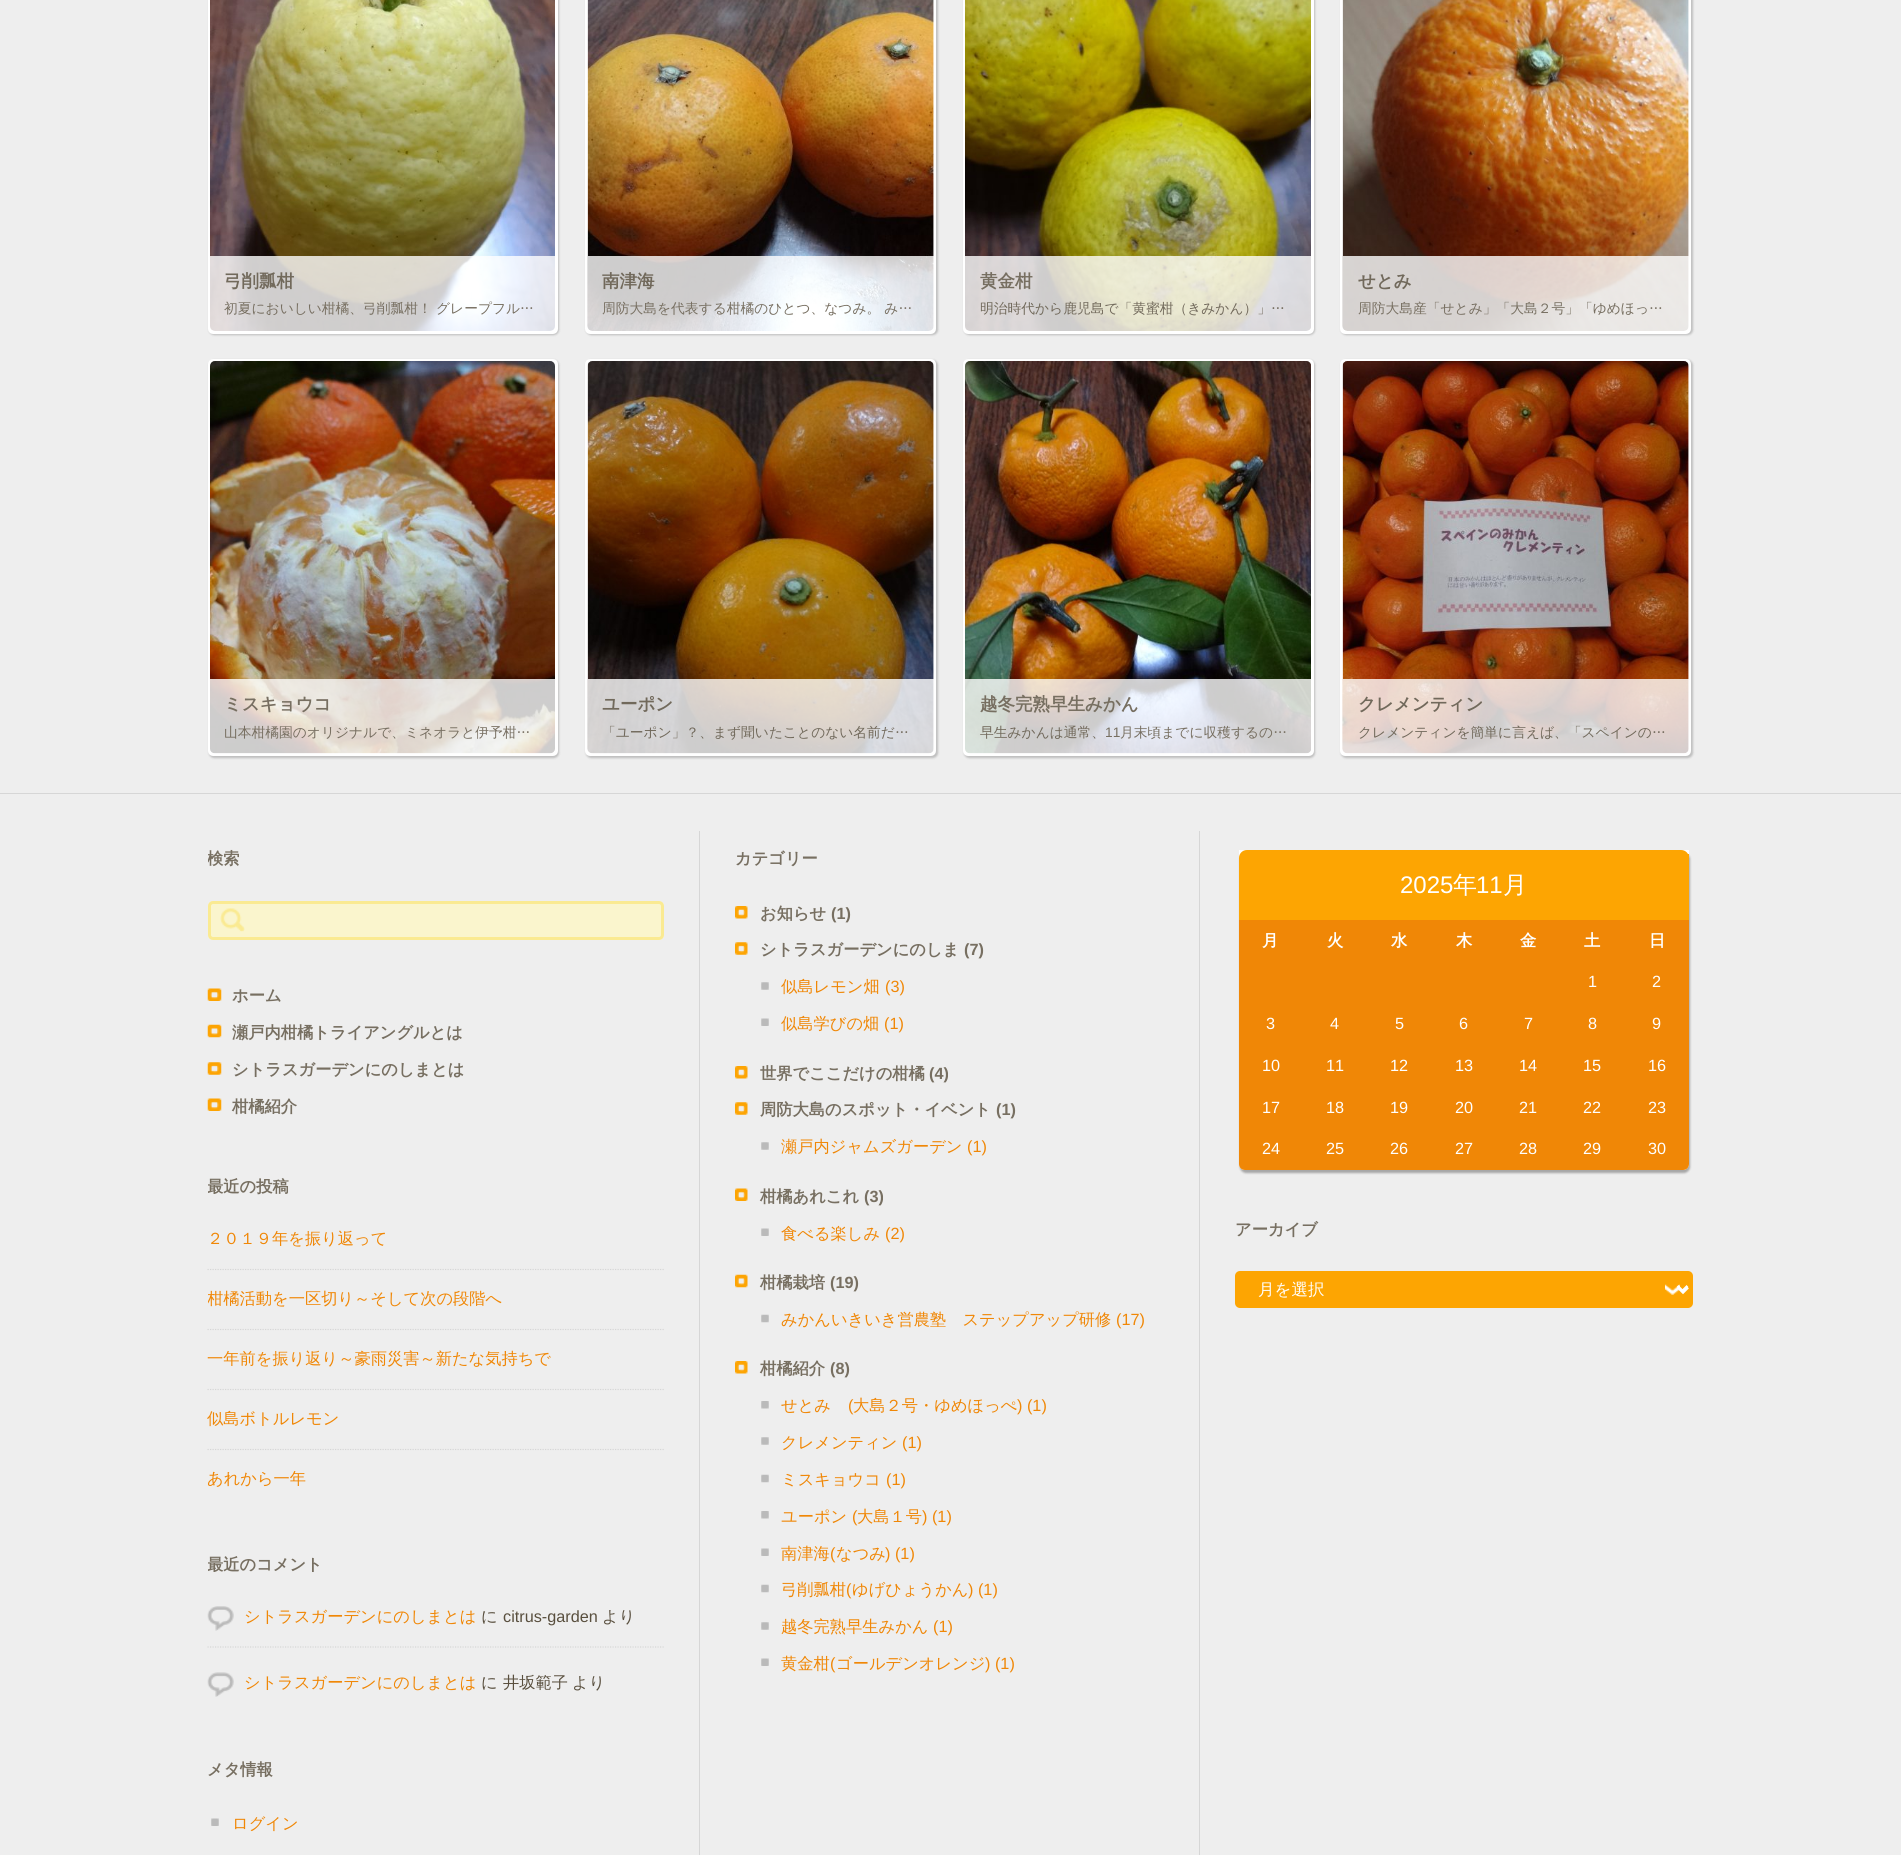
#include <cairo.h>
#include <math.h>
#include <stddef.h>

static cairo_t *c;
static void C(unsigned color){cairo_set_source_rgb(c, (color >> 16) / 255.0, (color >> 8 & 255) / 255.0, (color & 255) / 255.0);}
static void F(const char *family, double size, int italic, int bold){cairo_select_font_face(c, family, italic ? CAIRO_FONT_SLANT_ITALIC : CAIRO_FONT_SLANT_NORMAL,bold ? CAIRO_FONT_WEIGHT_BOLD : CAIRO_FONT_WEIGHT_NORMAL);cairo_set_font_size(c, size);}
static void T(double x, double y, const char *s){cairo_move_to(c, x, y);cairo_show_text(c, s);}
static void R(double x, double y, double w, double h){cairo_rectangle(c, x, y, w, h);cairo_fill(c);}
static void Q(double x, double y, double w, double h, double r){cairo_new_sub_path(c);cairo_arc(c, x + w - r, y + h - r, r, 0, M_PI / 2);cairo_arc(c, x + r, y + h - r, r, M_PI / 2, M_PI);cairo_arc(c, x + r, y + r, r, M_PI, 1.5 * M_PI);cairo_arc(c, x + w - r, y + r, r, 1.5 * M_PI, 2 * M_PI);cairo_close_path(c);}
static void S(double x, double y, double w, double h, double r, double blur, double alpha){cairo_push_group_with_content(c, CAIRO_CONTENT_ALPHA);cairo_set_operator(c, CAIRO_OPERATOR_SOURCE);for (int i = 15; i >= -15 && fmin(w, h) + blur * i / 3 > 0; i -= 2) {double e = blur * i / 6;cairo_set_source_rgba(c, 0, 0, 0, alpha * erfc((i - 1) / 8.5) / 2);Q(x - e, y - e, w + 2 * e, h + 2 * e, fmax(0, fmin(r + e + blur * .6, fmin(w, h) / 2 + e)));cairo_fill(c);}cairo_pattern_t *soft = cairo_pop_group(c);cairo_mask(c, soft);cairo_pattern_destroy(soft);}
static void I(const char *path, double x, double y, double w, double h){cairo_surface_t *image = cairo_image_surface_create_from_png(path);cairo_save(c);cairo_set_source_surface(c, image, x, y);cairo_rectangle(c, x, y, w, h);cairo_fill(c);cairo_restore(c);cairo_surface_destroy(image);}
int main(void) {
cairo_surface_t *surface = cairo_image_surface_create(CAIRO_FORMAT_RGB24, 1901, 1855);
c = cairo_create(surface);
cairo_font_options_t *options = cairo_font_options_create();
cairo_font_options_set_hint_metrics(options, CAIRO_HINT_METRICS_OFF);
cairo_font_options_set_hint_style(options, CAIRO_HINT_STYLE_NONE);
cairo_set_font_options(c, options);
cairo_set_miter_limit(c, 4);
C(0xeeeeee);
cairo_paint(c);
C(0x000000);
S(209,-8,350,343,5,1,.2);
C(0xffffff);
Q(209.5,-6.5,347,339,3.5);
cairo_fill_preserve(c);
cairo_set_line_width(c,3);
cairo_stroke(c);
I("1.png",210,0,345,331);
cairo_set_source_rgba(c,1,1,1,0.8);
cairo_new_path(c);
cairo_move_to(c,210,256);
cairo_line_to(c,555,256);
cairo_line_to(c,555,328.5);
cairo_curve_to(c,555,330,554,331,552.5,331);
cairo_line_to(c,212.5,331);
cairo_curve_to(c,211,331,210,330,210,328.5);
cairo_close_path(c);
cairo_fill(c);
F("WenQuanYi Zen Hei",17.5,0,1);
C(0x71695b);
T(224,287,"弓削瓢柑");
F("WenQuanYi Zen Hei Medium",13.75,0,0);
C(0x776f61);
T(224,313,"初夏においしい柑橘、弓削瓢柑！ グレープフル…");
C(0x000000);
S(586,-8,352,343,5,1,.2);
C(0xffffff);
Q(586.5,-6.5,348,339,3.5);
cairo_fill_preserve(c);
cairo_stroke(c);
I("2.png",587,0,347,331);
cairo_set_source_rgba(c,1,1,1,0.8);
cairo_new_path(c);
cairo_move_to(c,588,256);
cairo_line_to(c,934,256);
cairo_line_to(c,934,328.5);
cairo_curve_to(c,934,330,933,331,931.5,331);
cairo_line_to(c,590.5,331);
cairo_curve_to(c,589,331,588,330,588,328.5);
cairo_close_path(c);
cairo_fill(c);
F("WenQuanYi Zen Hei",17.5,0,1);
C(0x71695b);
T(602,287,"南津海");
F("WenQuanYi Zen Hei Medium",13.75,0,0);
C(0x776f61);
T(602,313,"周防大島を代表する柑橘のひとつ、なつみ。 み…");
C(0x000000);
S(964,-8,351,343,5,1,.2);
C(0xffffff);
Q(964.5,-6.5,348,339,3.5);
cairo_fill_preserve(c);
cairo_stroke(c);
I("3.png",965,0,346,331);
cairo_set_source_rgba(c,1,1,1,0.8);
cairo_new_path(c);
cairo_move_to(c,965,256);
cairo_line_to(c,1311,256);
cairo_line_to(c,1311,328.5);
cairo_curve_to(c,1311,330,1310,331,1308.5,331);
cairo_line_to(c,967.5,331);
cairo_curve_to(c,966,331,965,330,965,328.5);
cairo_close_path(c);
cairo_fill(c);
F("WenQuanYi Zen Hei",17.5,0,1);
C(0x776f61);
T(980,287,"黄金柑");
F("WenQuanYi Zen Hei Medium",13.75,0,0);
C(0x71695b);
T(980,313,"明治時代から鹿児島で「黄蜜柑（きみかん）」…");
C(0x000000);
S(1341,-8,352,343,5,1,.2);
C(0xffffff);
Q(1341.5,-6.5,348,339,3.5);
cairo_fill_preserve(c);
cairo_stroke(c);
I("4.png",1342,0,347,331);
cairo_set_source_rgba(c,1,1,1,0.8);
cairo_new_path(c);
cairo_move_to(c,1343,256);
cairo_line_to(c,1689,256);
cairo_line_to(c,1689,328.5);
cairo_curve_to(c,1689,330,1688,331,1686.5,331);
cairo_line_to(c,1345.5,331);
cairo_curve_to(c,1344,331,1343,330,1343,328.5);
cairo_close_path(c);
cairo_fill(c);
F("WenQuanYi Zen Hei",17.5,0,1);
C(0x71695b);
T(1358,287,"せとみ");
F("WenQuanYi Zen Hei Medium",13.75,0,0);
C(0x776f61);
T(1358,313,"周防大島産「せとみ」「大島２号」「ゆめほっ…");
C(0x000000);
S(209,360,350,398,5,1,.2);
C(0xffffff);
Q(209.5,360.5,347,394,3.5);
cairo_fill_preserve(c);
cairo_stroke(c);
I("5.png",210,361,345,393);
cairo_set_source_rgba(c,1,1,1,0.8);
cairo_new_path(c);
cairo_move_to(c,210,679);
cairo_line_to(c,555,679);
cairo_line_to(c,555,751.5);
cairo_curve_to(c,555,753,554,754,552.5,754);
cairo_line_to(c,212.5,754);
cairo_curve_to(c,211,754,210,753,210,751.5);
cairo_close_path(c);
cairo_fill(c);
F("WenQuanYi Zen Hei",17.5,0,1);
C(0x776f61);
T(224,710,"ミスキョウコ");
F("WenQuanYi Zen Hei Medium",13.75,0,0);
T(224,737,"山本柑橘園のオリジナルで、ミネオラと伊予柑…");
C(0x000000);
S(586,360,352,398,5,1,.2);
C(0xffffff);
Q(586.5,360.5,348,394,3.5);
cairo_fill_preserve(c);
cairo_stroke(c);
I("6.png",587,361,347,393);
cairo_set_source_rgba(c,1,1,1,0.8);
cairo_new_path(c);
cairo_move_to(c,588,679);
cairo_line_to(c,934,679);
cairo_line_to(c,934,751.5);
cairo_curve_to(c,934,753,933,754,931.5,754);
cairo_line_to(c,590.5,754);
cairo_curve_to(c,589,754,588,753,588,751.5);
cairo_close_path(c);
cairo_fill(c);
F("WenQuanYi Zen Hei",17.5,0,1);
C(0x71695b);
T(602,710,"ユーポン");
F("WenQuanYi Zen Hei Medium",13.75,0,0);
T(602,737,"「ユーポン」？、まず聞いたことのない名前だ…");
C(0x000000);
S(964,360,351,398,5,1,.2);
C(0xffffff);
Q(964.5,360.5,348,394,3.5);
cairo_fill_preserve(c);
cairo_stroke(c);
I("7.png",965,361,346,393);
cairo_set_source_rgba(c,1,1,1,0.8);
cairo_new_path(c);
cairo_move_to(c,965,679);
cairo_line_to(c,1311,679);
cairo_line_to(c,1311,751.5);
cairo_curve_to(c,1311,753,1310,754,1308.5,754);
cairo_line_to(c,967.5,754);
cairo_curve_to(c,966,754,965,753,965,751.5);
cairo_close_path(c);
cairo_fill(c);
F("WenQuanYi Zen Hei",17.5,0,1);
C(0x776f61);
T(980,710,"越冬完熟早生みかん");
F("WenQuanYi Zen Hei Medium",13.75,0,0);
C(0x71695b);
T(980,737,"早生みかんは通常、");
F("Liberation Sans",13.75,0,0);
C(0x776f61);
T(1105,737,"11");
F("WenQuanYi Zen Hei Medium",13.75,0,0);
T(1120,737,"月末頃までに収穫するの…");
C(0x000000);
S(1341,360,352,398,5,1,.2);
C(0xffffff);
Q(1341.5,360.5,348,394,3.5);
cairo_fill_preserve(c);
cairo_stroke(c);
I("8.png",1342,361,347,393);
cairo_set_source_rgba(c,1,1,1,0.8);
cairo_new_path(c);
cairo_move_to(c,1343,679);
cairo_line_to(c,1689,679);
cairo_line_to(c,1689,751.5);
cairo_curve_to(c,1689,753,1688,754,1686.5,754);
cairo_line_to(c,1345.5,754);
cairo_curve_to(c,1344,754,1343,753,1343,751.5);
cairo_close_path(c);
cairo_fill(c);
F("WenQuanYi Zen Hei",17.5,0,1);
C(0x71695b);
T(1358,710,"クレメンティン");
F("WenQuanYi Zen Hei Medium",13.75,0,0);
T(1358,737,"クレメンティンを簡単に言えば、「スペインの…");
C(0xd6d6d6);
R(0,793,1901,1);
R(699,831,1,1024);
cairo_save(c);
cairo_rectangle(c,208,846,456,94);
cairo_clip(c);
F("WenQuanYi Zen Hei",16.25,0,1);
C(0x776f61);
T(207,864,"検索");
cairo_restore(c);
C(0xfaf5cd);
Q(208,901,456,39,5);
cairo_fill(c);
I("9.png",220,908,25,24);
Q(209.5,902.5,453,36,3.5);
C(0xfaea92);
cairo_stroke(c);
I("10.png",207,988,15,13);
F("WenQuanYi Zen Hei",16.25,0,1);
C(0x776f61);
T(232,1001,"ホーム");
I("11.png",207,1024,15,14);
T(232,1038,"瀬戸内柑橘トライアングルとは");
I("12.png",207,1062,15,13);
T(232,1075,"シトラスガーデンにのしまとは");
I("10.png",207,1098,15,13);
T(232,1112,"柑橘紹介");
cairo_save(c);
cairo_rectangle(c,208,1175,456,334);
cairo_clip(c);
T(207,1192,"最近の投稿");
cairo_restore(c);
cairo_new_path(c);
cairo_move_to(c,207.5,1269.5);
cairo_line_to(c,664,1269.5);
C(0xd6d6d6);
cairo_set_line_width(c,1.2);
cairo_set_dash(c,(double[]){1.25,1.25},2,0);
cairo_stroke(c);
F("WenQuanYi Zen Hei Medium",16.25,0,0);
C(0xf08706);
T(207,1244,"２０１９年を振り返って");
cairo_new_path(c);
cairo_move_to(c,207.5,1329.5);
cairo_line_to(c,664,1329.5);
C(0xd6d6d6);
cairo_stroke(c);
cairo_save(c);
cairo_rectangle(c,208,1270,456,59);
cairo_clip(c);
C(0xf08706);
T(207,1304,"柑橘活動を一区切り～そして次の段階へ");
cairo_restore(c);
cairo_new_path(c);
cairo_move_to(c,207.5,1389.5);
cairo_line_to(c,664,1389.5);
cairo_stroke(c);
C(0xf08706);
T(207,1364,"一年前を振り返り～豪雨災害～新たな気持ちで");
cairo_new_path(c);
cairo_move_to(c,207.5,1449.5);
cairo_line_to(c,664,1449.5);
C(0xd6d6d6);
cairo_stroke(c);
C(0xf08706);
T(207,1424,"似島ボトルレモン");
T(207,1484,"あれから一年");
cairo_save(c);
cairo_rectangle(c,208,1553,456,161);
cairo_clip(c);
F("WenQuanYi Zen Hei",16.25,0,1);
C(0x776f61);
T(207,1570,"最近のコメント");
cairo_restore(c);
I("13.png",207,1606,27,25);
cairo_new_path(c);
cairo_move_to(c,207.5,1647);
cairo_line_to(c,664,1647);
C(0xd6d6d6);
cairo_stroke(c);
C(0xf08706);
T(244,1622,"シトラスガーデンにのしまとは");
C(0x594f3e);
T(481,1622,"に");
F("Liberation Sans",16.25,0,0);
T(503,1622,"citrus-garden");
F("WenQuanYi Zen Hei Medium",16.25,0,0);
T(602,1622,"より");
I("14.png",207,1672,27,25);
C(0xf08706);
T(244,1688,"シトラスガーデンにのしまとは");
C(0x594f3e);
T(481,1688,"に");
T(503,1688,"井坂範子");
T(572,1688,"より");
F("WenQuanYi Zen Hei",16.25,0,1);
C(0x776f61);
T(207,1775,"メタ情報");
I("15.png",211,1818,8,8);
F("WenQuanYi Zen Hei Medium",16.25,0,0);
C(0xf08706);
T(232,1829,"ログイン");
C(0xd6d6d6);
R(1199,831,1,1024);
F("WenQuanYi Zen Hei",16.25,0,1);
C(0x776f61);
T(735,864,"カテゴリー");
I("16.png",735,906,13,13);
T(760,919,"お知らせ");
F("Liberation Sans",16.25,0,1);
T(831,919,"(1)");
I("17.png",735,942,13,13);
F("WenQuanYi Zen Hei",16.25,0,1);
T(760,955,"シトラスガーデンにのしま");
F("Liberation Sans",16.25,0,1);
T(964,955,"(7)");
I("18.png",761,982,8,8);
F("WenQuanYi Zen Hei Medium",16.25,0,0);
C(0xf08706);
T(781,992,"似島レモン畑");
F("Liberation Sans",16.25,0,0);
T(885,992,"(3)");
I("15.png",761,1018,8,8);
F("WenQuanYi Zen Hei Medium",16.25,0,0);
T(781,1029,"似島学びの畑");
F("Liberation Sans",16.25,0,0);
T(884,1029,"(1)");
I("16.png",735,1066,13,13);
F("WenQuanYi Zen Hei",16.25,0,1);
C(0x776f61);
T(760,1079,"世界でここだけの柑橘");
F("Liberation Sans",16.25,0,1);
T(929,1079,"(4)");
I("17.png",735,1102,13,13);
F("WenQuanYi Zen Hei",16.25,0,1);
T(760,1115,"周防大島のスポット・イベント");
F("Liberation Sans",16.25,0,1);
T(996,1115,"(1)");
I("19.png",761,1142,8,8);
F("WenQuanYi Zen Hei Medium",16.25,0,0);
C(0xf08706);
T(781,1152,"瀬戸内ジャムズガーデン");
F("Liberation Sans",16.25,0,0);
T(967,1152,"(1)");
I("20.png",735,1188,13,13);
F("WenQuanYi Zen Hei",16.25,0,1);
C(0x776f61);
T(760,1202,"柑橘あれこれ");
F("Liberation Sans",16.25,0,1);
T(864,1202,"(3)");
I("15.png",761,1228,8,8);
F("WenQuanYi Zen Hei Medium",16.25,0,0);
C(0xf08706);
T(781,1239,"食べる楽しみ");
F("Liberation Sans",16.25,0,0);
T(885,1239,"(2)");
I("21.png",735,1274,13,14);
F("WenQuanYi Zen Hei",16.25,0,1);
C(0x776f61);
T(760,1288,"柑橘栽培");
F("Liberation Sans",16.25,0,1);
T(830,1288,"(19)");
I("22.png",761,1314,8,9);
F("WenQuanYi Zen Hei Medium",16.25,0,0);
C(0xf08706);
T(781,1325,"みかんいきいき営農塾　ステップアップ研修");
F("Liberation Sans",16.25,0,0);
T(1116,1325,"(17)");
I("16.png",735,1361,13,13);
F("WenQuanYi Zen Hei",16.25,0,1);
C(0x776f61);
T(760,1374,"柑橘紹介");
F("Liberation Sans",16.25,0,1);
T(830,1374,"(8)");
I("23.png",761,1401,8,8);
F("WenQuanYi Zen Hei Medium",16.25,0,0);
C(0xf08706);
T(781,1411,"せとみ");
F("Liberation Sans",16.25,0,0);
T(848,1411,"(");
F("WenQuanYi Zen Hei Medium",16.25,0,0);
T(853,1411,"大島２号・ゆめほっぺ");
F("Liberation Sans",16.25,0,0);
T(1017,1411,") (1)");
I("18.png",761,1437,8,8);
F("WenQuanYi Zen Hei Medium",16.25,0,0);
T(781,1448,"クレメンティン");
F("Liberation Sans",16.25,0,0);
T(902,1448,"(1)");
I("22.png",761,1474,8,9);
F("WenQuanYi Zen Hei Medium",16.25,0,0);
T(781,1485,"ミスキョウコ");
F("Liberation Sans",16.25,0,0);
T(886,1485,"(1)");
I("23.png",761,1511,8,8);
F("WenQuanYi Zen Hei Medium",16.25,0,0);
T(781,1522,"ユーポン");
F("Liberation Sans",16.25,0,0);
T(852,1522,"(");
F("WenQuanYi Zen Hei Medium",16.25,0,0);
T(857,1522,"大島１号");
F("Liberation Sans",16.25,0,0);
T(922,1522,") (1)");
I("15.png",761,1548,8,8);
F("WenQuanYi Zen Hei Medium",16.25,0,0);
T(781,1559,"南津海");
F("Liberation Sans",16.25,0,0);
T(830,1559,"(");
F("WenQuanYi Zen Hei Medium",16.25,0,0);
T(836,1559,"なつみ");
F("Liberation Sans",16.25,0,0);
T(885,1559,") (1)");
I("22.png",761,1584,8,9);
F("WenQuanYi Zen Hei Medium",16.25,0,0);
T(781,1595,"弓削瓢柑");
F("Liberation Sans",16.25,0,0);
T(846,1595,"(");
F("WenQuanYi Zen Hei Medium",16.25,0,0);
T(852,1595,"ゆげひょうかん");
F("Liberation Sans",16.25,0,0);
T(968,1595,") (1)");
I("18.png",761,1622,8,8);
F("WenQuanYi Zen Hei Medium",16.25,0,0);
T(781,1632,"越冬完熟早生みかん");
F("Liberation Sans",16.25,0,0);
T(933,1632,"(1)");
I("15.png",761,1658,8,8);
F("WenQuanYi Zen Hei Medium",16.25,0,0);
T(781,1669,"黄金柑");
F("Liberation Sans",16.25,0,0);
T(830,1669,"(");
F("WenQuanYi Zen Hei Medium",16.25,0,0);
T(836,1669,"ゴールデンオレンジ");
F("Liberation Sans",16.25,0,0);
T(985,1669,") (1)");
C(0x000000);
S(1240,853,450,320,6,1,.3);
C(0xffffff);
cairo_new_path(c);
cairo_move_to(c,1239,850);
cairo_line_to(c,1689,850);
cairo_line_to(c,1689,1164);
cairo_curve_to(c,1689,1167.5,1686.5,1170,1683,1170);
cairo_line_to(c,1245,1170);
cairo_curve_to(c,1241.5,1170,1239,1167.5,1239,1164);
cairo_close_path(c);
cairo_fill(c);
C(0xfda502);
cairo_new_path(c);
cairo_move_to(c,1247,850);
cairo_line_to(c,1681,850);
cairo_curve_to(c,1685.5,850,1689,853.5,1689,858);
cairo_line_to(c,1689,920);
cairo_line_to(c,1239,920);
cairo_line_to(c,1239,858);
cairo_curve_to(c,1239,853.5,1242.5,850,1247,850);
cairo_close_path(c);
cairo_fill(c);
R(1688,854,1,4);
F("Liberation Sans",24,0,0);
C(0xffffff);
T(1400,893,"2025");
F("WenQuanYi Zen Hei Medium",24,0,0);
T(1453,893,"年");
F("Liberation Sans",24,0,0);
T(1476,893,"11");
F("WenQuanYi Zen Hei Medium",24,0,0);
T(1503,893,"月");
C(0xf08706);
R(1239,920,450,41);
F("WenQuanYi Zen Hei",16.25,0,1);
C(0xffffff);
T(1262,946,"月");
T(1327,946,"火");
T(1391,946,"水");
T(1456,946,"木");
T(1520,946,"金");
T(1584,946,"土");
T(1649,946,"日");
C(0xf08706);
R(1239,961,450,42);
F("Liberation Sans",16.25,0,0);
C(0xffffff);
T(1588,987,"1");
T(1652,987,"2");
C(0xf08706);
R(1239,1003,450,42);
C(0xffffff);
T(1266,1029,"3");
T(1330,1029,"4");
T(1395,1029,"5");
T(1459,1029,"6");
T(1524,1029,"7");
T(1588,1029,"8");
T(1652,1029,"9");
C(0xf08706);
R(1239,1045,450,41);
C(0xffffff);
T(1262,1071,"10");
T(1326,1071,"11");
T(1390,1071,"12");
T(1455,1071,"13");
T(1519,1071,"14");
T(1583,1071,"15");
T(1648,1071,"16");
C(0xf08706);
R(1239,1086,450,42);
C(0xffffff);
T(1262,1113,"17");
T(1326,1113,"18");
T(1390,1113,"19");
T(1455,1113,"20");
T(1519,1113,"21");
T(1583,1113,"22");
T(1648,1113,"23");
C(0xf08706);
cairo_new_path(c);
cairo_move_to(c,1239,1128);
cairo_line_to(c,1303,1128);
cairo_line_to(c,1303,1170);
cairo_line_to(c,1245,1170);
cairo_curve_to(c,1241.5,1170,1239,1167.5,1239,1164);
cairo_close_path(c);
cairo_fill(c);
C(0xffffff);
T(1262,1154,"24");
C(0xf08706);
R(1303,1128,322,42);
C(0xffffff);
T(1326,1154,"25");
T(1390,1154,"26");
T(1455,1154,"27");
T(1519,1154,"28");
T(1583,1154,"29");
C(0xf08706);
cairo_new_path(c);
cairo_move_to(c,1625,1128);
cairo_line_to(c,1689,1128);
cairo_line_to(c,1689,1164);
cairo_curve_to(c,1689,1167.5,1686.5,1170,1683,1170);
cairo_line_to(c,1625,1170);
cairo_close_path(c);
cairo_fill(c);
C(0xffffff);
T(1648,1154,"30");
F("WenQuanYi Zen Hei",16.25,0,1);
C(0x776f61);
T(1235,1235,"アーカイブ");
C(0xfda502);
Q(1235,1271,458,37,5);
cairo_fill(c);
I("24.png",1665,1284,24,11);
cairo_new_path(c);
cairo_move_to(c,1678,1287.5);
cairo_line_to(c,1683,1292.5);
cairo_line_to(c,1688,1287.5);
C(0xffffff);
cairo_set_line_width(c,2.5);
cairo_set_dash(c,NULL,0,0);
cairo_stroke(c);
F("WenQuanYi Zen Hei Medium",16.5,0,0);
T(1258,1295,"月を選択");
cairo_surface_write_to_png(surface, "o.png");
cairo_font_options_destroy(options);
cairo_destroy(c);
cairo_surface_destroy(surface);
return 0;
}
